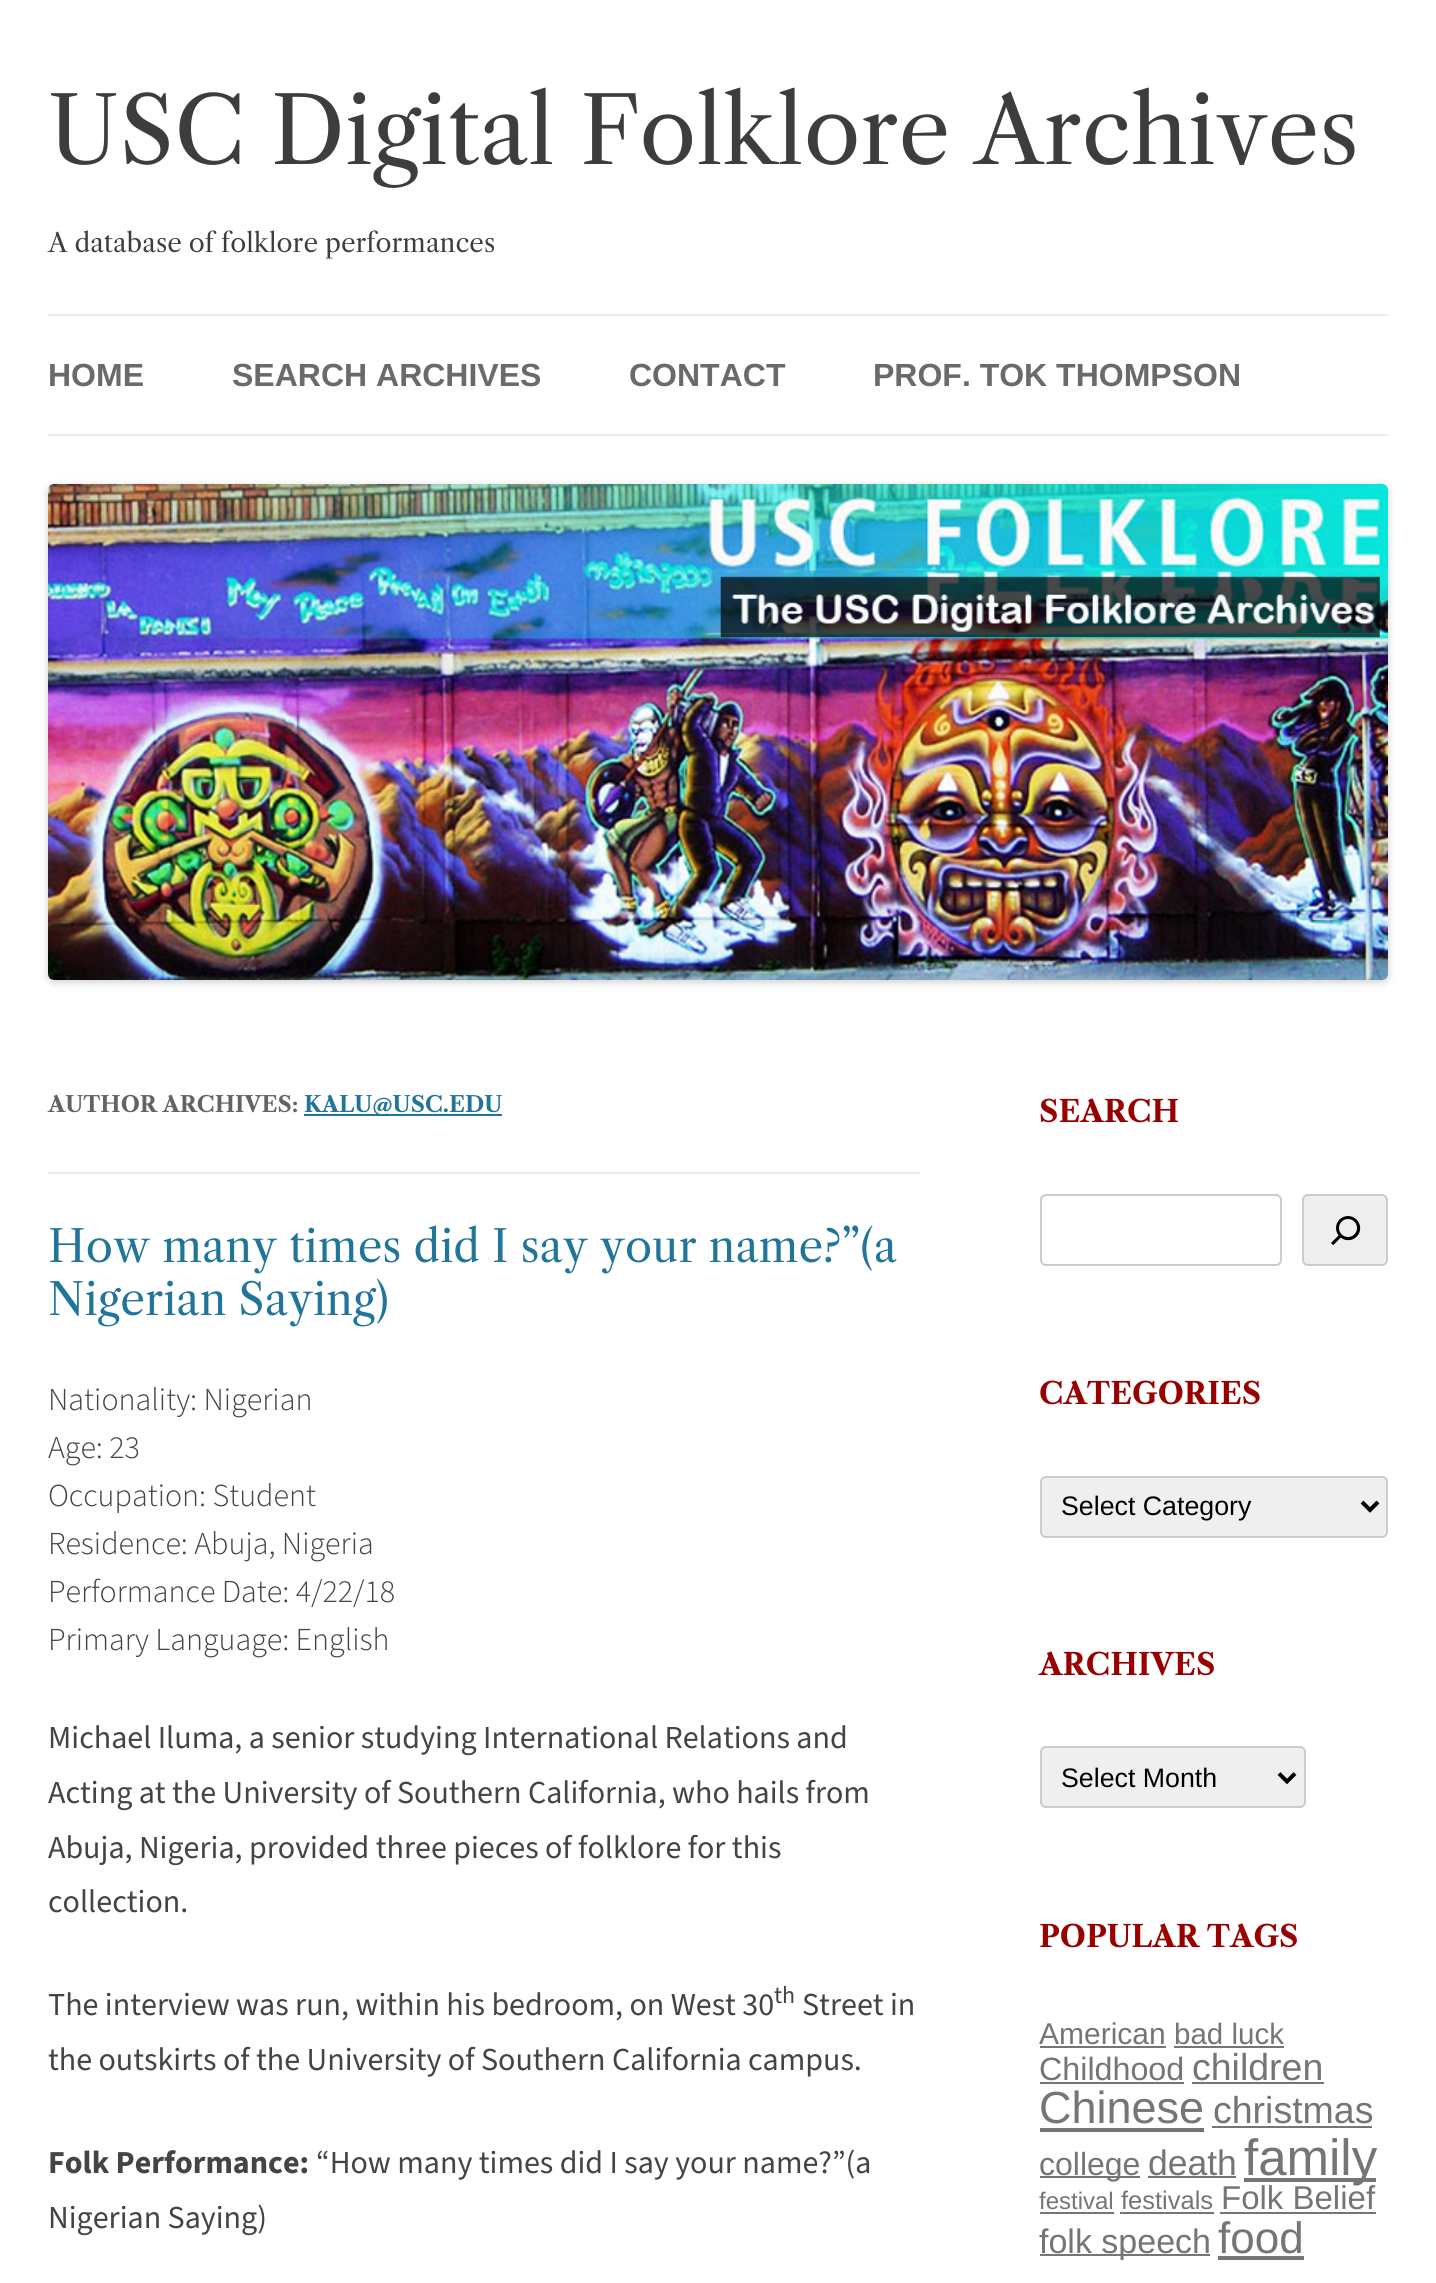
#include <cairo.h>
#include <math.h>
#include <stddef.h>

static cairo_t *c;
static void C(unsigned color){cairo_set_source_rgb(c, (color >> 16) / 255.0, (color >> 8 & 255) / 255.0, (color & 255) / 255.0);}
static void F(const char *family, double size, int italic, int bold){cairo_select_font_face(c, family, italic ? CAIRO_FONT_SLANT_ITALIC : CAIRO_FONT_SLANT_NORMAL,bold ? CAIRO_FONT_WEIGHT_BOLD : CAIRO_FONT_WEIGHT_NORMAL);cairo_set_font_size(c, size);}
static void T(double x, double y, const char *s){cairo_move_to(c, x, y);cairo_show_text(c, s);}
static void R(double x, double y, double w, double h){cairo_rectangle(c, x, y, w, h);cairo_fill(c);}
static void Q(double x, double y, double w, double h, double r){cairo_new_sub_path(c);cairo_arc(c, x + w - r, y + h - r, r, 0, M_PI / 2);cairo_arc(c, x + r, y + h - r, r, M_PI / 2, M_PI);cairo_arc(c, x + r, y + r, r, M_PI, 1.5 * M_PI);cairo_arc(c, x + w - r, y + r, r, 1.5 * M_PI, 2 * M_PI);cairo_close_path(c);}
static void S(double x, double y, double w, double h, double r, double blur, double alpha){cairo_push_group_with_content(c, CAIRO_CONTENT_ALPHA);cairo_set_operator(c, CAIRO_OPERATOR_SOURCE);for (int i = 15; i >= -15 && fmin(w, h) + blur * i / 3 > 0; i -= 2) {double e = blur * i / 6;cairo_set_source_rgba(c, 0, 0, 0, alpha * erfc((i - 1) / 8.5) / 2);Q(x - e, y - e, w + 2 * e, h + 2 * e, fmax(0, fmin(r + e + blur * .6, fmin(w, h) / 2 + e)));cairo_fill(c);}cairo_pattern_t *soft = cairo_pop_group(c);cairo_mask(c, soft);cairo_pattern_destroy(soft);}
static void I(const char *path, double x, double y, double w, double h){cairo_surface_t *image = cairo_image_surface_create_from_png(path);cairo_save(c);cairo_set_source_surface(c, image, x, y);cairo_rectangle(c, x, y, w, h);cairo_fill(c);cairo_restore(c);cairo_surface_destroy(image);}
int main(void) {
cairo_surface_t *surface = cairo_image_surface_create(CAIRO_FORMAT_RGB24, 1436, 2283);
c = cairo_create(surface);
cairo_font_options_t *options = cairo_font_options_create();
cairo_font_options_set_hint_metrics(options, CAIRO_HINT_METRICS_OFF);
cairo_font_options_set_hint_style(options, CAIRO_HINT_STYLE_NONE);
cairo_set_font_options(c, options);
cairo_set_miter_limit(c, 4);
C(0xffffff);
cairo_paint(c);
F("Libre Caslon Text",92,0,0);
C(0x3d3d3d);
T(48,164,"USC Digital Folklore Archives");
F("Libre Caslon Text",26,0,0);
T(48,252,"A database of folklore performances");
C(0xededed);
R(48,314,1340,2);
R(48,434,1340,2);
F("Liberation Sans",32,0,1);
C(0x6a6a6a);
T(48,386,"HOME");
T(232,386,"SEARCH ARCHIVES");
T(629,386,"CONTACT");
T(873,386,"PROF. TOK THOMPSON");
C(0x000000);
S(48,486,1340,496,6,4,.2);
I("1.png",48,484,1340,496);
C(0xededed);
R(48,1172,872,2);
F("Libre Caslon Text",22,0,1);
C(0x636363);
T(48,1112,"AUTHOR ARCHIVES:");
C(0x21759b);
R(304,1114,198,2);
T(304,1112,"KALU@USC.EDU");
F("Libre Caslon Text",44,0,0);
T(48,1262,"How many times did I say your name?”(a");
T(48,1315,"Nigerian Saying)");
F("Source Sans 3 Light",32,0,0);
C(0x444444);
T(48,1410,"Nationality: Nigerian");
T(48,1458,"Age: 23");
T(48,1506,"Occupation: Student");
T(48,1554,"Residence: Abuja, Nigeria");
T(48,1602,"Performance Date: 4/22/18");
T(48,1650,"Primary Language: English");
F("Source Sans 3",32,0,0);
T(48,1748,"Michael Iluma, a senior studying International Relations and");
T(48,1803,"Acting at the University of Southern California, who hails from");
T(48,1858,"Abuja, Nigeria, provided three pieces of folklore for this");
T(48,1912,"collection.");
T(48,2015,"The interview was run, within his bedroom, on West 30");
F("Source Sans 3",24,0,0);
T(774,2003,"th");
F("Source Sans 3",32,0,0);
T(802,2015,"Street in");
T(48,2070,"the outskirts of the University of Southern California campus.");
F("Source Sans 3",32,0,1);
T(48,2173,"Folk Performance:");
F("Source Sans 3",32,0,0);
T(316,2173,"“How many times did I say your name?”(a");
T(48,2228,"Nigerian Saying)");
F("Libre Caslon Text",30,0,1);
C(0x990000);
T(1039,1122,"SEARCH");
Q(1041,1195,240,70,5);
C(0xcccccc);
cairo_stroke(c);
C(0xefefef);
Q(1303,1195,84,70,5);
cairo_fill_preserve(c);
C(0xcccccc);
cairo_stroke(c);
I("2.png",1331,1216,30,30);
C(0x990000);
T(1039,1404,"CATEGORIES");
C(0xefefef);
Q(1041,1477,346,60,5);
cairo_fill_preserve(c);
C(0xcccccc);
cairo_stroke(c);
cairo_new_path(c);
cairo_move_to(c,1362,1502);
cairo_line_to(c,1370,1510);
cairo_line_to(c,1378,1502);
C(0x000000);
cairo_set_line_width(c,4);
cairo_stroke(c);
F("Liberation Sans",26.75,0,0);
T(1061,1515,"Select Category");
F("Libre Caslon Text",30,0,1);
C(0x990000);
T(1039,1675,"ARCHIVES");
C(0xefefef);
Q(1041,1747,264,60,5);
cairo_fill_preserve(c);
C(0xcccccc);
cairo_set_line_width(c,2);
cairo_stroke(c);
cairo_new_path(c);
cairo_move_to(c,1279,1773.5);
cairo_line_to(c,1287,1781.5);
cairo_line_to(c,1295,1773.5);
C(0x000000);
cairo_set_line_width(c,4);
cairo_stroke(c);
F("Liberation Sans",26.75,0,0);
T(1061,1787,"Select Month");
F("Libre Caslon Text",30,0,1);
C(0x990000);
T(1039,1947,"POPULAR TAGS");
F("Liberation Sans",30,0,0);
C(0x757575);
T(1039,2044,"American");
R(1040,2046,126,2);
F("Liberation Sans",29.5,0,0);
T(1174,2044,"bad luck");
R(1174,2046,110,2);
F("Liberation Sans",32.25,0,0);
T(1039,2080,"Childhood");
R(1040,2082,144,2);
F("Liberation Sans",37.5,0,0);
T(1192,2080,"children");
R(1192,2082,132,2);
F("Liberation Sans",45,0,0);
T(1039,2123,"Chinese");
R(1040,2128,164,4);
F("Liberation Sans",37.5,0,0);
T(1213,2123,"christmas");
R(1212,2126,160,2);
R(1040,2176,100,2);
F("Liberation Sans",32,0,0);
T(1039,2175,"college");
F("Liberation Sans",35.5,0,0);
T(1148,2175,"death");
R(1148,2176,88,2);
R(1244,2178,132,4);
F("Liberation Sans",51,0,0);
T(1244,2175,"family");
F("Liberation Sans",24,0,0);
T(1039,2209,"festival");
R(1040,2212,74,2);
F("Liberation Sans",25.5,0,0);
T(1121,2209,"festivals");
R(1120,2212,94,2);
F("Liberation Sans",33,0,0);
T(1221,2209,"Folk Belief");
R(1220,2212,156,2);
R(1040,2254,170,2);
F("Liberation Sans",34,0,0);
T(1039,2253,"folk speech");
F("Liberation Sans",44,0,0);
T(1218,2253,"food");
R(1218,2256,86,4);
cairo_surface_write_to_png(surface, "o.png");
cairo_font_options_destroy(options);
cairo_destroy(c);
cairo_surface_destroy(surface);
return 0;
}
